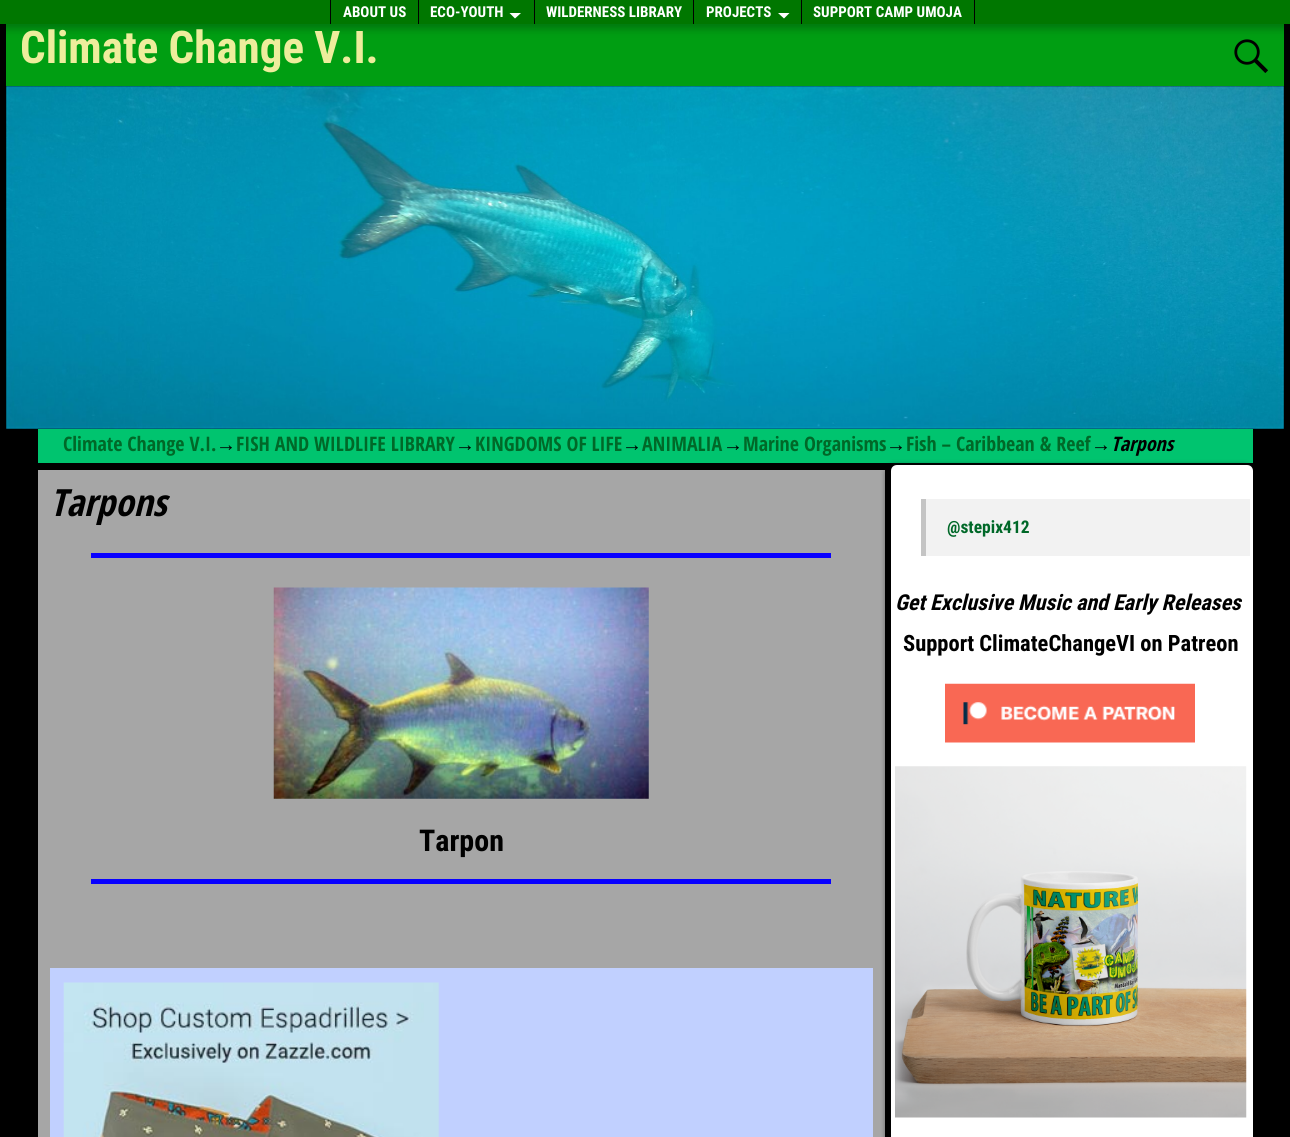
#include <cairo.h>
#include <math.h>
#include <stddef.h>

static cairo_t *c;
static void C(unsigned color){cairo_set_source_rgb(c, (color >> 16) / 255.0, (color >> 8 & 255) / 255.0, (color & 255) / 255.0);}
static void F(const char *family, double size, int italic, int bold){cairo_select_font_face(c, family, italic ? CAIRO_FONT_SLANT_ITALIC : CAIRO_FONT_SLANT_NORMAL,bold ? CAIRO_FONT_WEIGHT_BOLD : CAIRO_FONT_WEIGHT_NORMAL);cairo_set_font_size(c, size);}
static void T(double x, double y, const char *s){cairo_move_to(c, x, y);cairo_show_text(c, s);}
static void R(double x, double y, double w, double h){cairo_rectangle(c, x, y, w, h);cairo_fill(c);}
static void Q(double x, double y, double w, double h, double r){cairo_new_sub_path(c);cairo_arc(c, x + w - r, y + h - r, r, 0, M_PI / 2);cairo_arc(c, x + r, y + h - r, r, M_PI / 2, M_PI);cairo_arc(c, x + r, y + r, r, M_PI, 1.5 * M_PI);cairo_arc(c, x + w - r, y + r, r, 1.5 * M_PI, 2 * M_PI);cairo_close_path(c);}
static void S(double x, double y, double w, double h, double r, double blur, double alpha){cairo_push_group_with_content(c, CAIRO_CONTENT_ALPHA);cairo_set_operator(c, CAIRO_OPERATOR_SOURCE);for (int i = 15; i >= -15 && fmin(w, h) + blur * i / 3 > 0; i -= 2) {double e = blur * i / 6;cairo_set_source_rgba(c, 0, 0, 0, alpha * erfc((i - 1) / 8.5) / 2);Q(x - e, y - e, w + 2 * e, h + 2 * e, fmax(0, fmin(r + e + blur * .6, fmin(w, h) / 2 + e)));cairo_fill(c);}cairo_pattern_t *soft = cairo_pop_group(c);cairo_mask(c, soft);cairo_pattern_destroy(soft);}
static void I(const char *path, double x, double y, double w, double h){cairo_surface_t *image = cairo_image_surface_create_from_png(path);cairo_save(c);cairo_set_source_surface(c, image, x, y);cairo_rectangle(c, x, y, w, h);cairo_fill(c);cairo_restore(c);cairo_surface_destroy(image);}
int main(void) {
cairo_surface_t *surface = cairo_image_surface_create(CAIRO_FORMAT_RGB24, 1290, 1137);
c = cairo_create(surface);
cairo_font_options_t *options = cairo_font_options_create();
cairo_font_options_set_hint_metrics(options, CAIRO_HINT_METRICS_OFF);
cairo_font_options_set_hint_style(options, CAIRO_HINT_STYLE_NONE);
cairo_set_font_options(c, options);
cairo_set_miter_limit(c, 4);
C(0xffffff);
cairo_paint(c);
I("1.png",0,24,1290,1113);
C(0x009e12);
R(6,24,1278,62);
I("2.png",1234,39,34,34);
C(0x000000);
S(-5,-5,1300,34,0,4,.25);
C(0x007700);
R(0,0,1290,24);
C(0x000000);
R(330,0,1,24);
R(418,0,1,24);
F("Roboto Condensed",15,0,1);
C(0xffffff);
T(343,17,"ABOUT US");
C(0x000000);
R(534,0,1,24);
C(0xffffff);
T(430,17,"ECO-YOUTH");
cairo_new_path(c);
cairo_move_to(c,509.5,13);
cairo_line_to(c,521,13);
cairo_line_to(c,515,18.5);
cairo_close_path(c);
cairo_fill(c);
C(0x000000);
R(693,0,1,24);
C(0xffffff);
T(546,17,"WILDERNESS LIBRARY");
C(0x000000);
R(801,0,1,24);
C(0xffffff);
T(706,17,"PROJECTS");
cairo_new_path(c);
cairo_move_to(c,778,13);
cairo_line_to(c,789.5,13);
cairo_line_to(c,784,18.5);
cairo_close_path(c);
cairo_fill(c);
C(0x000000);
R(974,0,1,24);
C(0xffffff);
T(813,17,"SUPPORT CAMP UMOJA");
F("Roboto Condensed",45,0,1);
C(0xeded9c);
T(20,63,"Climate Change V.I.");
I("3.png",6,86,1278,343);
C(0x00c46f);
R(38,429,1215,34);
F("Open Sans Condensed",20,0,1);
C(0x006828);
T(63,451,"Climate Change V.I.");
F("Liberation Sans",20,0,1);
C(0x000000);
T(216,451,"→");
F("Open Sans Condensed",20,0,1);
C(0x006828);
T(236,451,"FISH AND WILDLIFE LIBRARY");
F("Liberation Sans",20,0,1);
C(0x000000);
T(455,451,"→");
F("Open Sans Condensed",20,0,1);
C(0x006828);
T(475,451,"KINGDOMS OF LIFE");
F("Liberation Sans",20,0,1);
C(0x000000);
T(622,451,"→");
F("Open Sans Condensed",20,0,1);
C(0x006828);
T(642,451,"ANIMALIA");
F("Liberation Sans",20,0,1);
C(0x000000);
T(723,451,"→");
F("Open Sans Condensed",20,0,1);
C(0x006828);
T(743,451,"Marine Organisms");
F("Liberation Sans",20,0,1);
C(0x000000);
T(886,451,"→");
F("Open Sans Condensed",20,0,1);
C(0x006828);
T(906,451,"Fish – Caribbean & Reef");
F("Liberation Sans",20,0,1);
C(0x000000);
T(1091,451,"→");
F("Open Sans Condensed",20,1,1);
T(1111,451,"Tarpons");
C(0xa6a6a6);
R(38,470,847,667);
F("Open Sans Condensed",37.5,1,1);
C(0x000000);
T(50,516,"Tarpons");
C(0x0800ff);
R(91,553,740,5);
I("4.png",273,587,376,212);
F("Roboto Condensed",30,0,1);
C(0x000000);
T(419,851,"Tarpon");
C(0x0800ff);
R(91,879,740,5);
C(0xc1d0ff);
R(50,968,823,169);
I("5.png",63,982,376,155);
C(0x000000);
S(884,463,371,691,11,2,.25);
C(0xffffff);
cairo_new_path(c);
cairo_move_to(c,897,465);
cairo_line_to(c,1247,465);
cairo_curve_to(c,1250.5,465,1253,467.5,1253,471);
cairo_line_to(c,1253,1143);
cairo_line_to(c,891,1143);
cairo_line_to(c,891,471);
cairo_curve_to(c,891,467.5,893.5,465,897,465);
cairo_close_path(c);
cairo_fill(c);
C(0xf2f2f2);
R(926,499,324,57);
C(0xc4c4c4);
R(921,499,5,57);
F("Roboto Condensed",17.5,0,1);
C(0x006828);
T(947,533,"@stepix412");
F("Roboto Condensed",21.9,1,1);
C(0x000000);
T(895,610,"Get Exclusive Music and Early Releases");
F("Roboto Condensed",22.5,0,1);
T(903,651,"Support ClimateChangeVI on Patreon");
I("6.png",945,683,250,60);
I("7.png",895,766,352,352);
cairo_surface_write_to_png(surface, "o.png");
cairo_font_options_destroy(options);
cairo_destroy(c);
cairo_surface_destroy(surface);
return 0;
}
